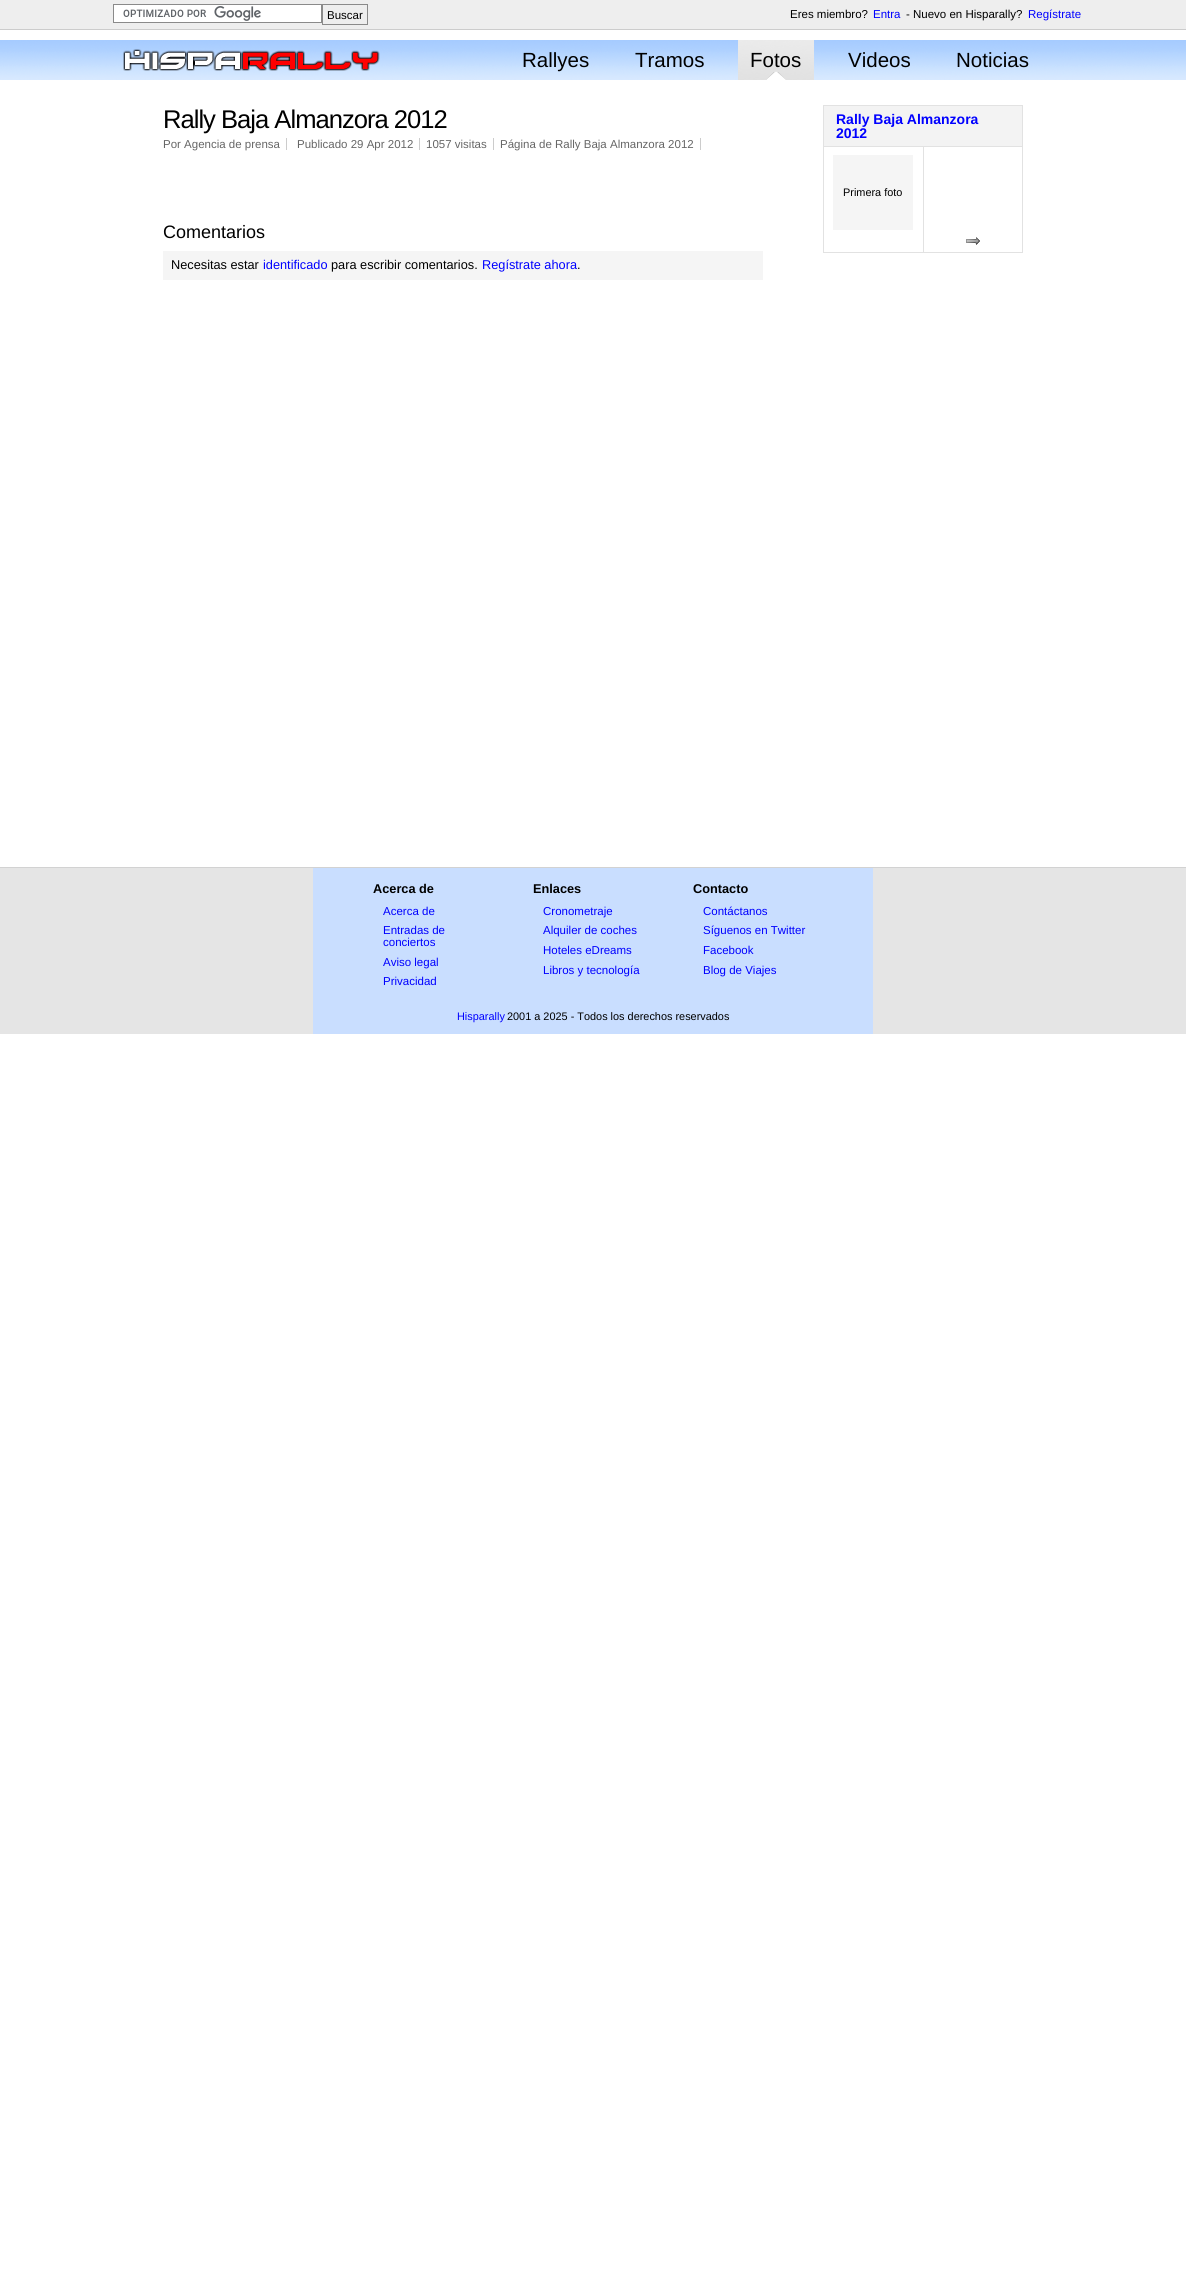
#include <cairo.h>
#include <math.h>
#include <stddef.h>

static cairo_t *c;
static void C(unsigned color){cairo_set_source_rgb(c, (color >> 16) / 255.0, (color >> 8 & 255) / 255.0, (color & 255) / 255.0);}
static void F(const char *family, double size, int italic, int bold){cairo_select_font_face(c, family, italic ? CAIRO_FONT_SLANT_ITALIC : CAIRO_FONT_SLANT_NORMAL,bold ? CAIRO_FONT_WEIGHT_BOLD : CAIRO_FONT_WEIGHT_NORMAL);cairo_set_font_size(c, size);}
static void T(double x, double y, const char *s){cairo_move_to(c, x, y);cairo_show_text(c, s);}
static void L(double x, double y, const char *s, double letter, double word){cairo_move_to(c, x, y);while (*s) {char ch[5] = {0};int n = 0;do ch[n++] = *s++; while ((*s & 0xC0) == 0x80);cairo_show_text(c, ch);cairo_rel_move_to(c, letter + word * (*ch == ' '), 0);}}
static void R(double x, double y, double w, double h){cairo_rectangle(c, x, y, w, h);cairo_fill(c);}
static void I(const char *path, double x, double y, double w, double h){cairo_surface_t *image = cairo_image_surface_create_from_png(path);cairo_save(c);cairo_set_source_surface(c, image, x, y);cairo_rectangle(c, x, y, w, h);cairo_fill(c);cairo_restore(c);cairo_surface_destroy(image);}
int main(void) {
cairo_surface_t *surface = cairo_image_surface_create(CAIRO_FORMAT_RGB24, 1186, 2277);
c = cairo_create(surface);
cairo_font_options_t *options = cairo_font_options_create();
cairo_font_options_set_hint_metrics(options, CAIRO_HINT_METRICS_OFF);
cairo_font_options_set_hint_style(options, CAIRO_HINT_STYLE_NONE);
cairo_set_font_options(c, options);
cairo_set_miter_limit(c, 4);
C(0xffffff);
cairo_paint(c);
C(0xeeeeee);
R(0,0,1186,29);
C(0xcccccc);
R(0,29,1186,1);
C(0xffffff);
R(114,5,207,17);
I("1.png",123,6,138,15);
cairo_rectangle(c,113.5,4.5,208,18);
C(0x8a8a8a);
cairo_set_line_width(c,1);
cairo_stroke(c);
cairo_rectangle(c,322.5,4.5,45,20);
cairo_stroke(c);
F("Liberation Sans",11.5,0,0);
C(0x000000);
T(327,19,"Buscar");
T(790,18,"Eres miembro?");
C(0x0000ff);
T(873,18,"Entra");
C(0x000000);
T(906,18,"- Nuevo en Hisparally?");
C(0x0000ff);
T(1028,18,"Regístrate");
I("2.png",0,40,1186,40);
I("3.png",123,49,257,22);
F("Liberation Sans",20.5,0,0);
C(0x000000);
T(522,67,"Rallyes");
T(635,67,"Tramos");
I("4.png",738,40,76,40);
T(750,67,"Fotos");
T(848,67,"Videos");
T(956,67,"Noticias");
F("Liberation Sans",25.6,0,0);
L(163,128,"Rally Baja Almanzora 2012",-1,0);
F("Liberation Sans",11.5,0,0);
C(0x666666);
T(163,148,"Por Agencia de prensa");
C(0xcccccc);
R(286,138,1,12);
C(0x666666);
T(297,148,"Publicado 29 Apr 2012");
C(0xcccccc);
R(419,138,1,12);
C(0x666666);
T(426,148,"1057 visitas");
C(0xcccccc);
R(493,138,1,12);
C(0x666666);
T(500,148,"Página de Rally Baja Almanzora 2012");
C(0xcccccc);
R(700,138,1,12);
F("Liberation Sans",18,0,0);
C(0x000000);
T(163,238,"Comentarios");
C(0xf5f5f5);
R(163,251,600,29);
F("Liberation Sans",12.75,0,0);
C(0x000000);
T(171,269,"Necesitas estar");
C(0x0000ff);
T(263,269,"identificado");
C(0x000000);
T(331,269,"para escribir comentarios.");
C(0x0000ff);
T(482,269,"Regístrate ahora");
C(0x000000);
T(577,269,".");
cairo_rectangle(c,823.5,105.5,199,147);
C(0xe2e2e2);
cairo_stroke(c);
C(0xf3f3f3);
R(824,106,198,40);
F("Liberation Sans",14,0,1);
C(0x0000ff);
T(836,124,"Rally Baja Almanzora");
T(836,138,"2012");
C(0xe2e2e2);
R(923,146,1,106);
R(824,146,198,1);
C(0xf5f5f5);
R(833,155,80,75);
F("Liberation Sans",10.9,0,0);
C(0x000000);
T(843,196,"Primera foto");
I("5.png",966,237,14,8);
C(0xe5e5e5);
R(0,868,1186,166);
C(0xd2d2d2);
R(0,867,1186,1);
C(0xc9deff);
R(313,868,560,166);
F("Liberation Sans",12.75,0,1);
C(0x000000);
T(373,893,"Acerca de");
F("Liberation Sans",11.5,0,0);
C(0x0000ff);
T(383,915,"Acerca de");
T(383,934,"Entradas de");
T(383,946,"conciertos");
T(383,966,"Aviso legal");
T(383,985,"Privacidad");
F("Liberation Sans",12.75,0,1);
C(0x000000);
T(533,893,"Enlaces");
F("Liberation Sans",11.5,0,0);
C(0x0000ff);
T(543,915,"Cronometraje");
T(543,934,"Alquiler de coches");
T(543,954,"Hoteles eDreams");
T(543,974,"Libros y tecnología");
F("Liberation Sans",12.75,0,1);
C(0x000000);
T(693,893,"Contacto");
F("Liberation Sans",11.5,0,0);
C(0x0000ff);
T(703,915,"Contáctanos");
T(703,934,"Síguenos en Twitter");
T(703,954,"Facebook");
T(703,974,"Blog de Viajes");
F("Liberation Sans",10.9,0,0);
T(457,1020,"Hisparally");
C(0x000000);
T(507,1020,"2001 a 2025 - Todos los derechos reservados");
cairo_surface_write_to_png(surface, "o.png");
cairo_font_options_destroy(options);
cairo_destroy(c);
cairo_surface_destroy(surface);
return 0;
}
